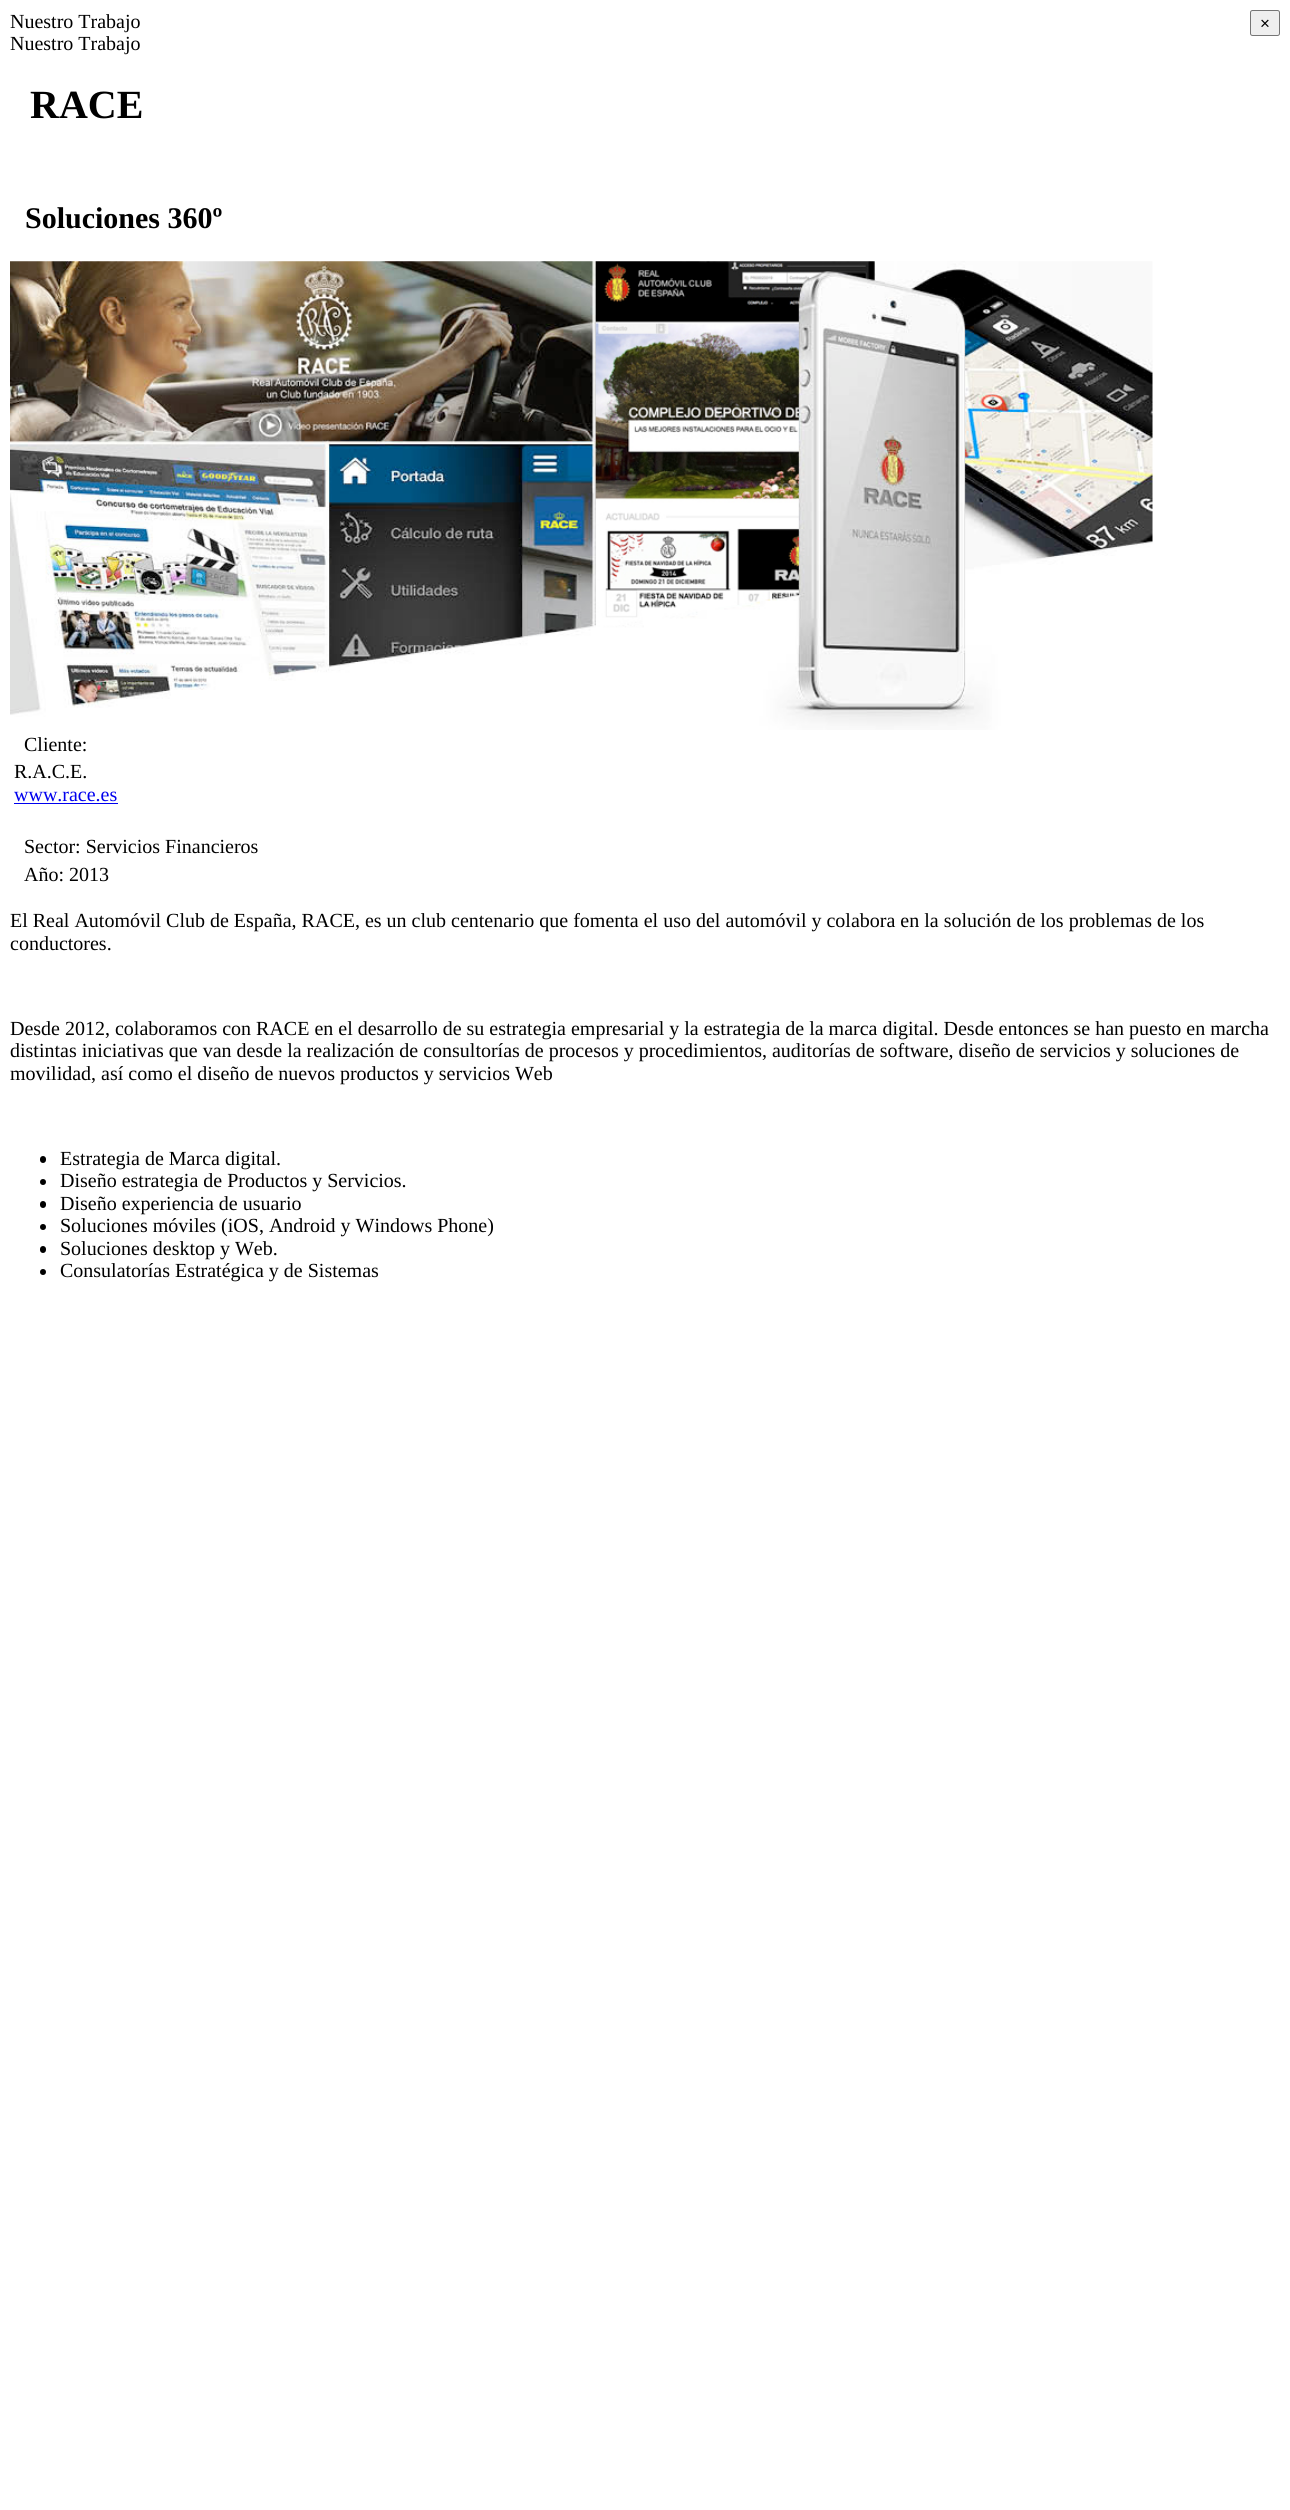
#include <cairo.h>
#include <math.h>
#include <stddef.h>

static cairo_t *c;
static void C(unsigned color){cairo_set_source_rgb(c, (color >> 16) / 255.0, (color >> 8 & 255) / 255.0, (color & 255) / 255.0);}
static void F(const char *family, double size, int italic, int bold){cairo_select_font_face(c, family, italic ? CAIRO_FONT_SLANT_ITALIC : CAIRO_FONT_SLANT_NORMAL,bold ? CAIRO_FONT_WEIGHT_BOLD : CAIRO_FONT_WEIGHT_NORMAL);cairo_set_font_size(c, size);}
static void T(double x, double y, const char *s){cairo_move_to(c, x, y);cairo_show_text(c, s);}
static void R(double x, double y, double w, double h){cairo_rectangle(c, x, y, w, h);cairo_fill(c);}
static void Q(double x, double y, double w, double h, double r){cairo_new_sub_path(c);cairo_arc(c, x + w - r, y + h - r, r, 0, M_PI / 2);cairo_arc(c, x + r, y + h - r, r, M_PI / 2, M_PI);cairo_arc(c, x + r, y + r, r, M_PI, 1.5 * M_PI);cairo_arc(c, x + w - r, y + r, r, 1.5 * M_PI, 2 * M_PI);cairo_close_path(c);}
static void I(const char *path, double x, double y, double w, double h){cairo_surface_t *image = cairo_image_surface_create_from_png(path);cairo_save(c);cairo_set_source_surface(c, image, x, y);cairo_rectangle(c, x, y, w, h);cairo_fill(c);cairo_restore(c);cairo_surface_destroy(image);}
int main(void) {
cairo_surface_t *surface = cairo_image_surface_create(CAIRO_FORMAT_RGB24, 1290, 2510);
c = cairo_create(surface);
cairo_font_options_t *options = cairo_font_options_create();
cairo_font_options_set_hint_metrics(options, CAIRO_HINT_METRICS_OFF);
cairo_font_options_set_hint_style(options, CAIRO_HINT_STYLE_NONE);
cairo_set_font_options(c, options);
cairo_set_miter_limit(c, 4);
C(0xffffff);
cairo_paint(c);
F("Liberation Serif",20,0,0);
C(0x000000);
T(10,28,"Nuestro Trabajo");
C(0xefefef);
Q(1250.5,10.5,29,25,2);
cairo_fill_preserve(c);
C(0x767676);
cairo_set_line_width(c,1);
cairo_stroke(c);
F("Liberation Sans",17,0,0);
C(0x000000);
T(1260,29,"×");
F("Liberation Serif",20,0,0);
T(10,50,"Nuestro Trabajo");
F("Liberation Serif",40,0,1);
T(30,118,"RACE");
F("Liberation Serif",30,0,1);
T(25,228,"Soluciones 360º");
I("1.png",10,261,1143,469);
F("Liberation Serif",20,0,0);
T(24,751,"Cliente:");
T(14,778,"R.A.C.E.");
C(0x0000ee);
T(14,801,"www.race.es");
R(14,803,104,1);
C(0x000000);
T(24,853,"Sector: Servicios Financieros");
T(24,881,"Año: 2013");
T(10,927,"El Real Automóvil Club de España, RACE, es un club centenario que fomenta el uso del automóvil y colabora en la solución de los problemas de los");
T(10,950,"conductores.");
T(10,1035,"Desde 2012, colaboramos con RACE en el desarrollo de su estrategia empresarial y la estrategia de la marca digital. Desde entonces se han puesto en marcha");
T(10,1057,"distintas iniciativas que van desde la realización de consultorías de procesos y procedimientos, auditorías de software, diseño de servicios y soluciones de");
T(10,1080,"movilidad, así como el diseño de nuevos productos y servicios Web");
Q(40,1156,6,7,3);
cairo_fill(c);
T(60,1165,"Estrategia de Marca digital.");
cairo_new_path(c);
cairo_arc(c,43,1182,3,0,2 * M_PI);
cairo_fill(c);
T(60,1187,"Diseño estrategia de Productos y Servicios.");
Q(40,1201,6,7,3);
cairo_fill(c);
T(60,1210,"Diseño experiencia de usuario");
cairo_new_path(c);
cairo_arc(c,43,1227,3,0,2 * M_PI);
cairo_fill(c);
T(60,1232,"Soluciones móviles (iOS, Android y Windows Phone)");
Q(40,1246,6,7,3);
cairo_fill(c);
T(60,1255,"Soluciones desktop y Web.");
cairo_new_path(c);
cairo_arc(c,43,1272,3,0,2 * M_PI);
cairo_fill(c);
T(60,1277,"Consulatorías Estratégica y de Sistemas");
cairo_surface_write_to_png(surface, "o.png");
cairo_font_options_destroy(options);
cairo_destroy(c);
cairo_surface_destroy(surface);
return 0;
}
